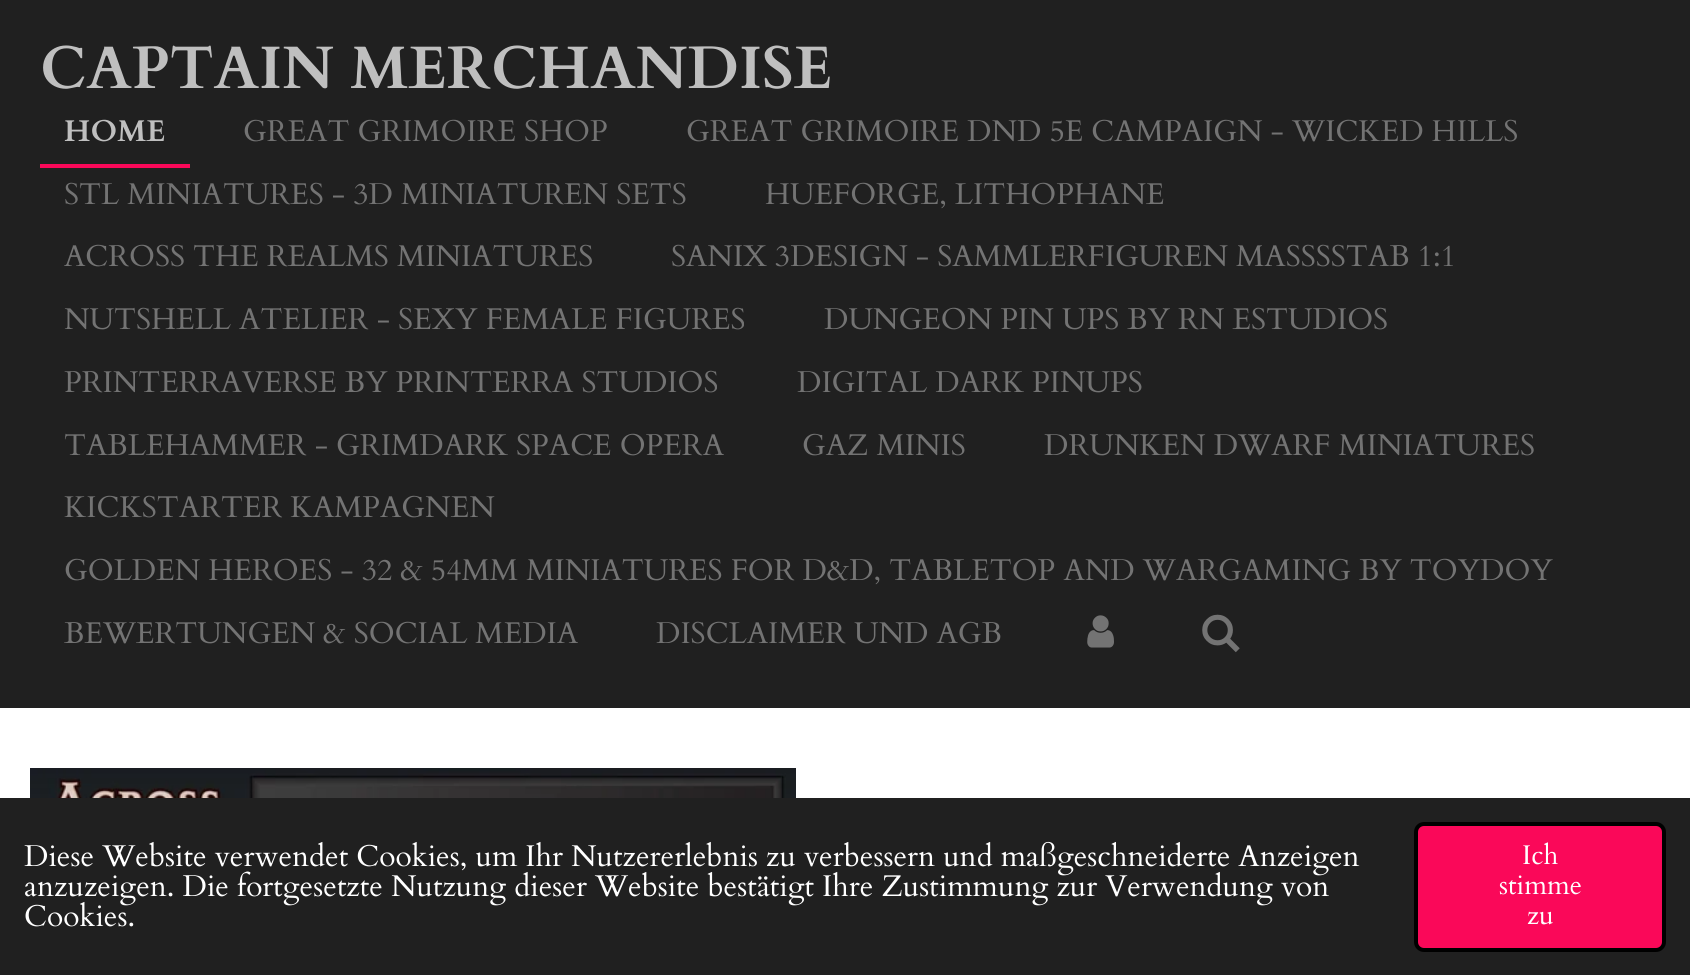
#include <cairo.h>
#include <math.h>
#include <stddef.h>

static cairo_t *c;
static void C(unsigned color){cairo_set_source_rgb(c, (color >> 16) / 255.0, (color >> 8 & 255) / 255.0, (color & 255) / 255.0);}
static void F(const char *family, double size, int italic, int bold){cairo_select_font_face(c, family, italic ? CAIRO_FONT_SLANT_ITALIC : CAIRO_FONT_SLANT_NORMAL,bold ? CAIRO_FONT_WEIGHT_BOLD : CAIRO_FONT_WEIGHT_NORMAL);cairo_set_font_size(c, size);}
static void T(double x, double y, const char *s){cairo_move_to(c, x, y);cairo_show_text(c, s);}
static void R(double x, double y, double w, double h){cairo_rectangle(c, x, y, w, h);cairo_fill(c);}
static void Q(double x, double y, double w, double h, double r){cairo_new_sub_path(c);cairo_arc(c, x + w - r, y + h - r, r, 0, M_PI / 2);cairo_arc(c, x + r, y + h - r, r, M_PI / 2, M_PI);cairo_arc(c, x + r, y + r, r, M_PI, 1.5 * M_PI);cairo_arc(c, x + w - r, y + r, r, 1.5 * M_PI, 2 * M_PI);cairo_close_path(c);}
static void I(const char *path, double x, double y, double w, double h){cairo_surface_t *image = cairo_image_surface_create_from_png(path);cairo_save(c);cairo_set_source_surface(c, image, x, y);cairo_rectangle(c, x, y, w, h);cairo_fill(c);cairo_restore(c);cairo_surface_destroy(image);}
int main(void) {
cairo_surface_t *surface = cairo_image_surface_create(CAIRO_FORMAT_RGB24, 1690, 975);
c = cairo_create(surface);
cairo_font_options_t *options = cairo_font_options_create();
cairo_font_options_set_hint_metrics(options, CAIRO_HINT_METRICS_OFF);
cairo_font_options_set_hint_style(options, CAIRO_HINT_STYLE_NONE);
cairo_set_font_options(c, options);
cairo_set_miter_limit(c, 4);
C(0x202020);
cairo_paint(c);
F("Cardo",60,0,1);
C(0xbfbfbf);
T(40,88,"CAPTAIN MERCHANDISE");
C(0xfa0859);
R(40,164,150,4);
F("Cardo",30,0,1);
C(0xbfbfbf);
T(64,141,"HOME");
F("Cardo",30,0,0);
C(0x737373);
T(243,141,"GREAT GRIMOIRE SHOP");
T(686,141,"GREAT GRIMOIRE DND 5E CAMPAIGN - WICKED HILLS");
T(64,204,"STL MINIATURES - 3D MINIATUREN SETS");
T(765,204,"HUEFORGE, LITHOPHANE");
T(64,266,"ACROSS THE REALMS MINIATURES");
T(671,266,"SANIX 3DESIGN - SAMMLERFIGUREN MASSSSTAB 1:1");
T(64,329,"NUTSHELL ATELIER - SEXY FEMALE FIGURES");
T(824,329,"DUNGEON PIN UPS BY RN ESTUDIOS");
T(64,392,"PRINTERRAVERSE BY PRINTERRA STUDIOS");
T(797,392,"DIGITAL DARK PINUPS");
T(64,455,"TABLEHAMMER - GRIMDARK SPACE OPERA");
T(802,455,"GAZ MINIS");
T(1044,455,"DRUNKEN DWARF MINIATURES");
T(64,517,"KICKSTARTER KAMPAGNEN");
T(64,580,"GOLDEN HEROES - 32 & 54MM MINIATURES FOR D&D, TABLETOP AND WARGAMING BY TOYDOY");
T(64,643,"BEWERTUNGEN & SOCIAL MEDIA");
T(656,643,"DISCLAIMER UND AGB");
I("1.png",1087,615,27,33);
I("2.png",1202,614,38,39);
C(0xffffff);
R(0,708,1690,90);
I("3.png",30,768,766,30);
T(24,866,"Diese Website verwendet Cookies, um Ihr Nutzererlebnis zu verbessern und maßgeschneiderte Anzeigen");
T(24,896,"anzuzeigen. Die fortgesetzte Nutzung dieser Website bestätigt Ihre Zustimmung zur Verwendung von");
T(24,926,"Cookies.");
C(0xfa0859);
Q(1416,824,248,126,8);
cairo_fill_preserve(c);
C(0x000000);
cairo_set_line_width(c,4);
cairo_stroke(c);
F("Cardo",27,0,0);
C(0xffffff);
T(1522,864,"Ich");
T(1499,894,"stimme");
T(1527,924,"zu");
cairo_surface_write_to_png(surface, "o.png");
cairo_font_options_destroy(options);
cairo_destroy(c);
cairo_surface_destroy(surface);
return 0;
}
